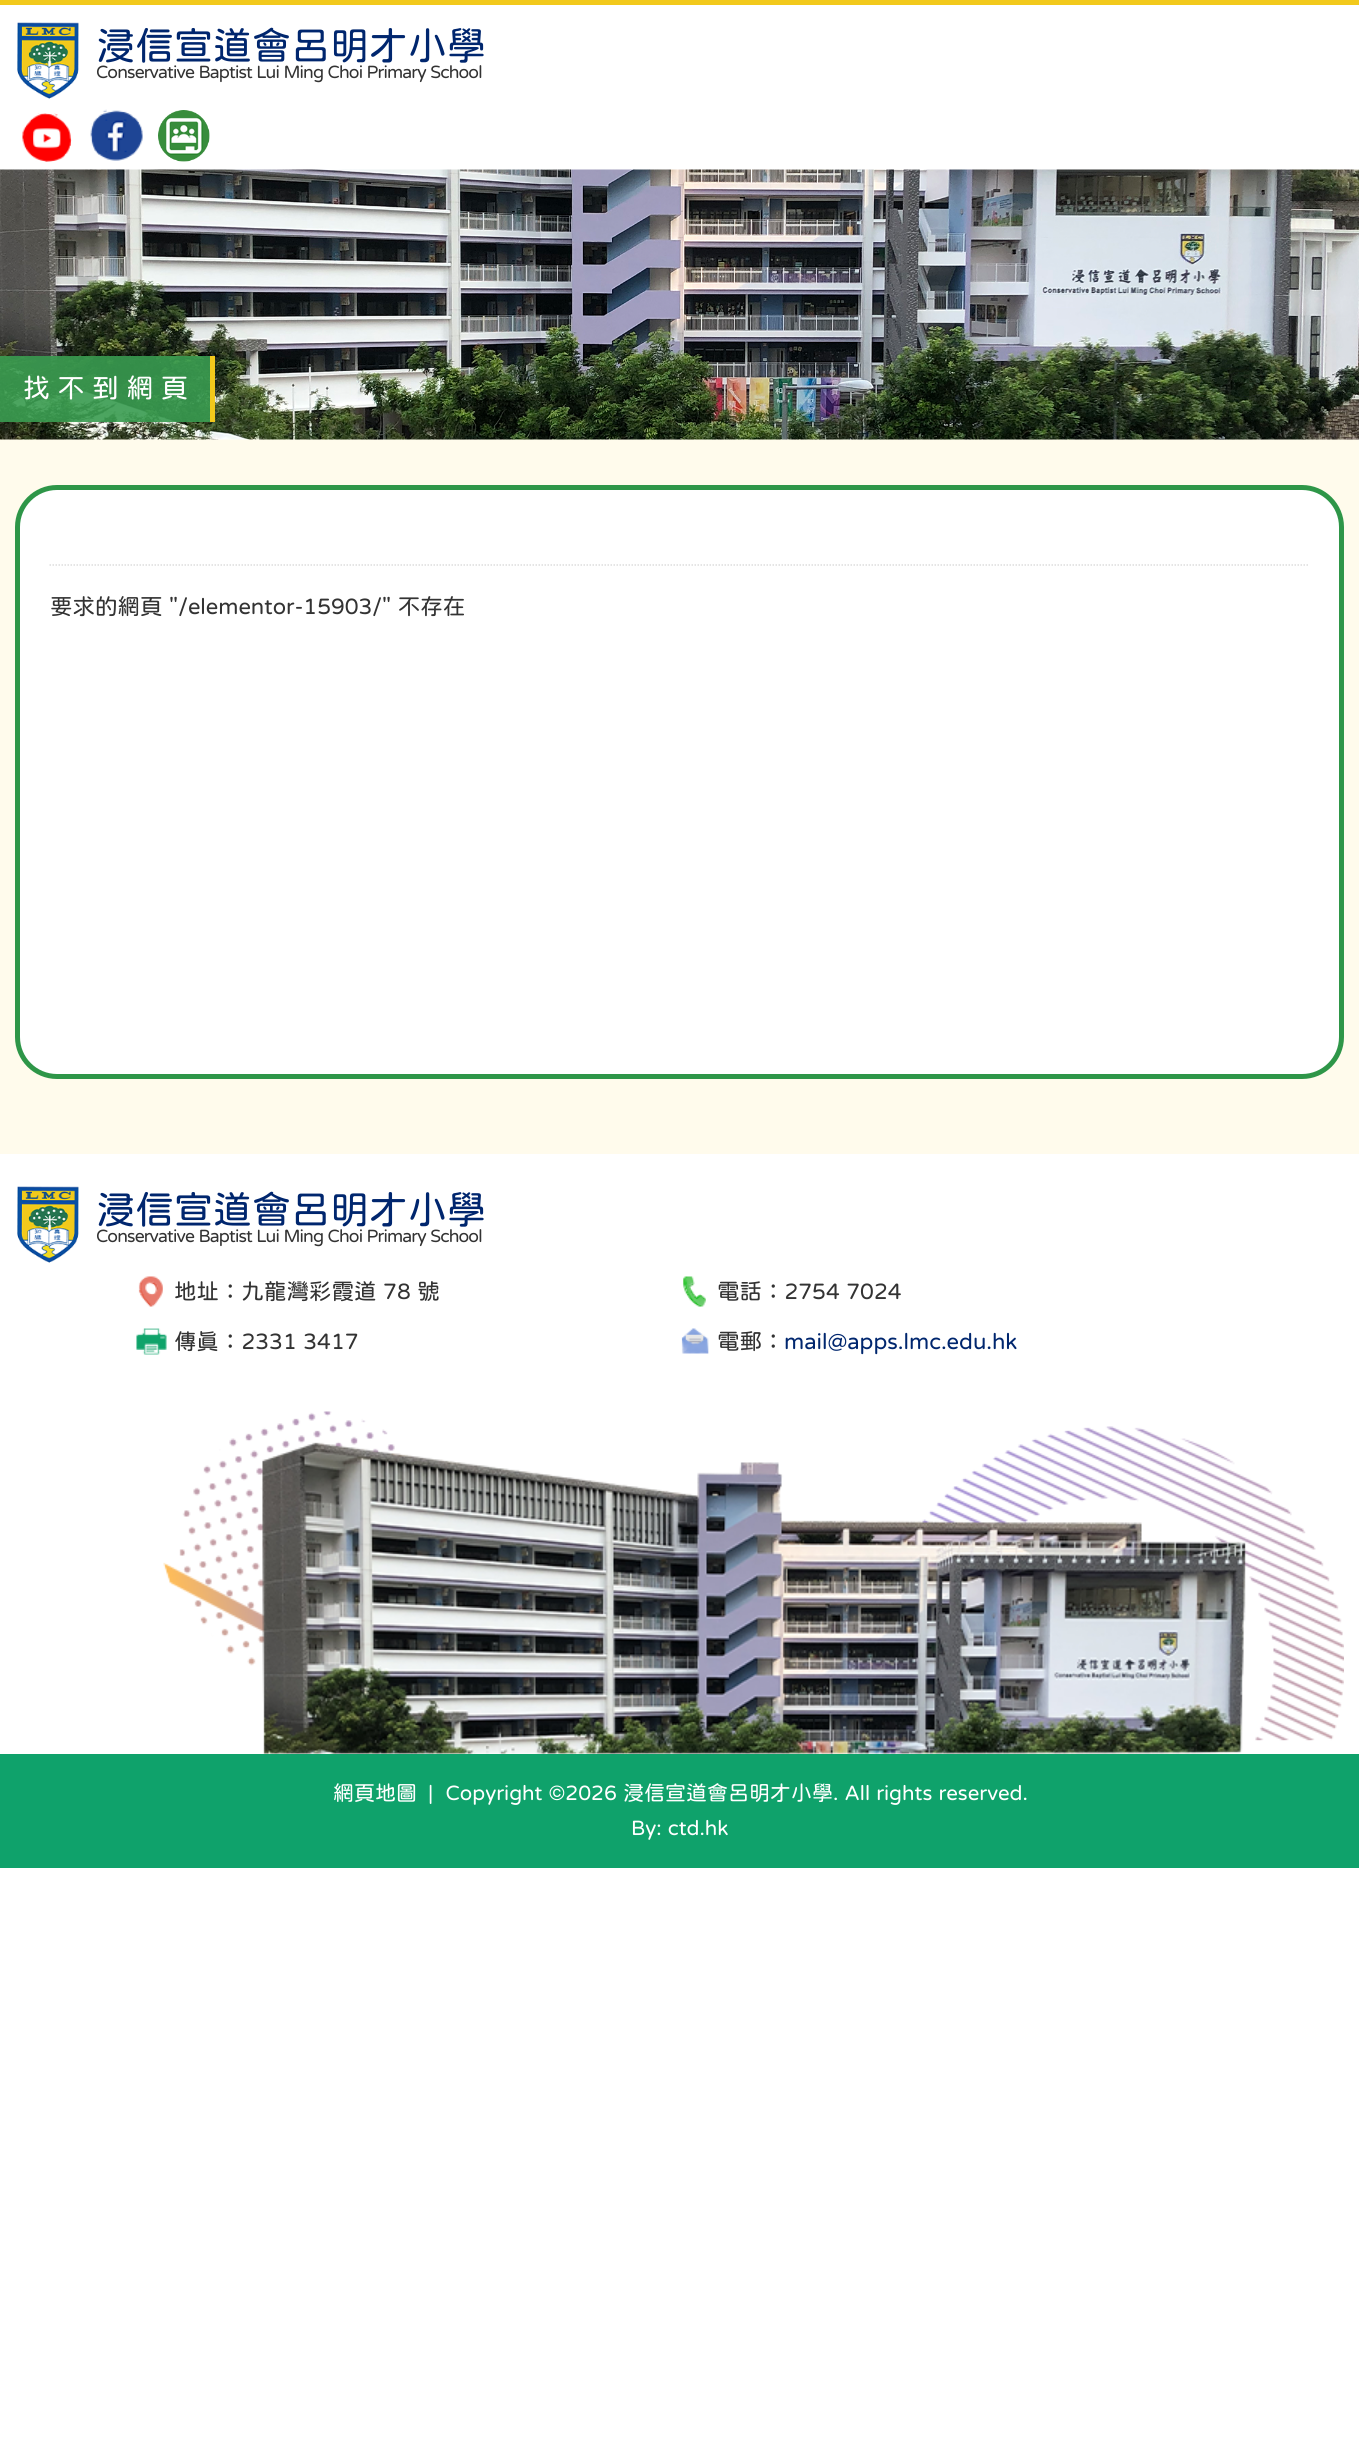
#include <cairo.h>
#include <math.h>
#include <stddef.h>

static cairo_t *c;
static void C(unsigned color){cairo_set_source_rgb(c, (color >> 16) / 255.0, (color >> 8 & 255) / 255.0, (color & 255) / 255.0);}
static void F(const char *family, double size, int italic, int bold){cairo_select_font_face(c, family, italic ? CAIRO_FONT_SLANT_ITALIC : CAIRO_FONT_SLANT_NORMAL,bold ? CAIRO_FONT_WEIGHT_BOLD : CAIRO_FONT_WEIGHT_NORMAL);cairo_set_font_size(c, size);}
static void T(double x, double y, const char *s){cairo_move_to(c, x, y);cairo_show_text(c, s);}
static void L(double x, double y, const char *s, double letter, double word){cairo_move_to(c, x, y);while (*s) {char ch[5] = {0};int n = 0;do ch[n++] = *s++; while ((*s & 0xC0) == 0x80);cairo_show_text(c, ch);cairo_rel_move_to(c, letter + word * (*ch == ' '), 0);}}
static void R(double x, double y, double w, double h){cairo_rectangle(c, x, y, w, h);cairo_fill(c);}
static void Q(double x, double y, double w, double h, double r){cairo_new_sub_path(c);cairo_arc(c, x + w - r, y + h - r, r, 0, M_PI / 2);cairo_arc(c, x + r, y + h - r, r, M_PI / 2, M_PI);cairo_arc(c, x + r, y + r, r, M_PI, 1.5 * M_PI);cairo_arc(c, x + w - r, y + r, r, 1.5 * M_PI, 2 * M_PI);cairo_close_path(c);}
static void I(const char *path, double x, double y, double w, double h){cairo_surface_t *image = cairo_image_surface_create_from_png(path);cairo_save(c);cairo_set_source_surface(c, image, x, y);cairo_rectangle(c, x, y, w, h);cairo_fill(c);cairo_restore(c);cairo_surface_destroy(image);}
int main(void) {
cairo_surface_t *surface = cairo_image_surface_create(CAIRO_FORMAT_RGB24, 1359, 2462);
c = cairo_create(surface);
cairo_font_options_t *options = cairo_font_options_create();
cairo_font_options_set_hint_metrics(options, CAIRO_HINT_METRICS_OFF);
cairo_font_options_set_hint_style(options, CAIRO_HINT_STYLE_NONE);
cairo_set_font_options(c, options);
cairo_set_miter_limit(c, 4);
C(0xffffff);
cairo_paint(c);
C(0xfffbec);
R(0,439,1359,715);
C(0xf2c91c);
R(0,0,1359,5);
I("1.png",17,22,62,77);
F("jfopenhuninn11",39,0,0);
C(0x00266e);
T(96,59,"浸信宣道會呂明才小學");
F("jfopenhuninn11",18,0,0);
C(0x333333);
L(96,78,"Conservative Baptist Lui Ming Choi Primary School",-.85,0);
I("2.png",22,113,50,49);
I("3.png",90,109,53,52);
I("4.png",158,110,52,52);
I("5.png",0,169,1359,271);
cairo_set_source_rgba(c,0.224,0.608,0.314,0.9);
R(0,356,210,66);
C(0xf2c91c);
R(210,356,5,66);
F("jfopenhuninn11",27,0,0);
C(0xffffff);
L(23,397,"找不到網頁",7.5,0);
Q(17.5,487.5,1324,589,39.5);
cairo_fill_preserve(c);
C(0x2e9648);
cairo_set_line_width(c,5);
cairo_stroke(c);
cairo_new_path(c);
cairo_move_to(c,49.5,565);
cairo_line_to(c,1309.5,565);
C(0xdddddd);
cairo_set_line_width(c,1.5);
cairo_set_dash(c,(double[]){1.5,1.5},2,0);
cairo_stroke(c);
F("jfopenhuninn11",22.5,0,0);
C(0x333333);
T(50,614,"要求的網頁 \"/elementor-15903/\" 不存在");
I("1.png",17,1186,62,77);
F("jfopenhuninn11",39,0,0);
C(0x00266e);
T(96,1223,"浸信宣道會呂明才小學");
F("jfopenhuninn11",18,0,0);
C(0x333333);
L(96,1242,"Conservative Baptist Lui Ming Choi Primary School",-.85,0);
I("6.png",138,1276,25,31);
F("jfopenhuninn11",22.5,0,0);
T(174,1299,"地址：九龍灣彩霞道 78 號");
I("7.png",683,1276,23,31);
T(717,1299,"電話：2754 7024");
I("8.png",136,1328,31,27);
T(174,1349,"傳真：2331 3417");
I("9.png",681,1328,28,26);
T(717,1349,"電郵：");
C(0x00266e);
T(784,1349,"mail@apps.lmc.edu.hk");
I("10.png",163,1411,1181,343);
C(0x0fa26b);
R(0,1754,1359,114);
F("jfopenhuninn11",21,0,0);
C(0xffffff);
T(333,1800,"網頁地圖");
T(428,1800,"|  Copyright ©2026 浸信宣道會呂明才小學. All rights reserved.");
T(631,1835,"By: ctd.hk");
cairo_surface_write_to_png(surface, "o.png");
cairo_font_options_destroy(options);
cairo_destroy(c);
cairo_surface_destroy(surface);
return 0;
}
